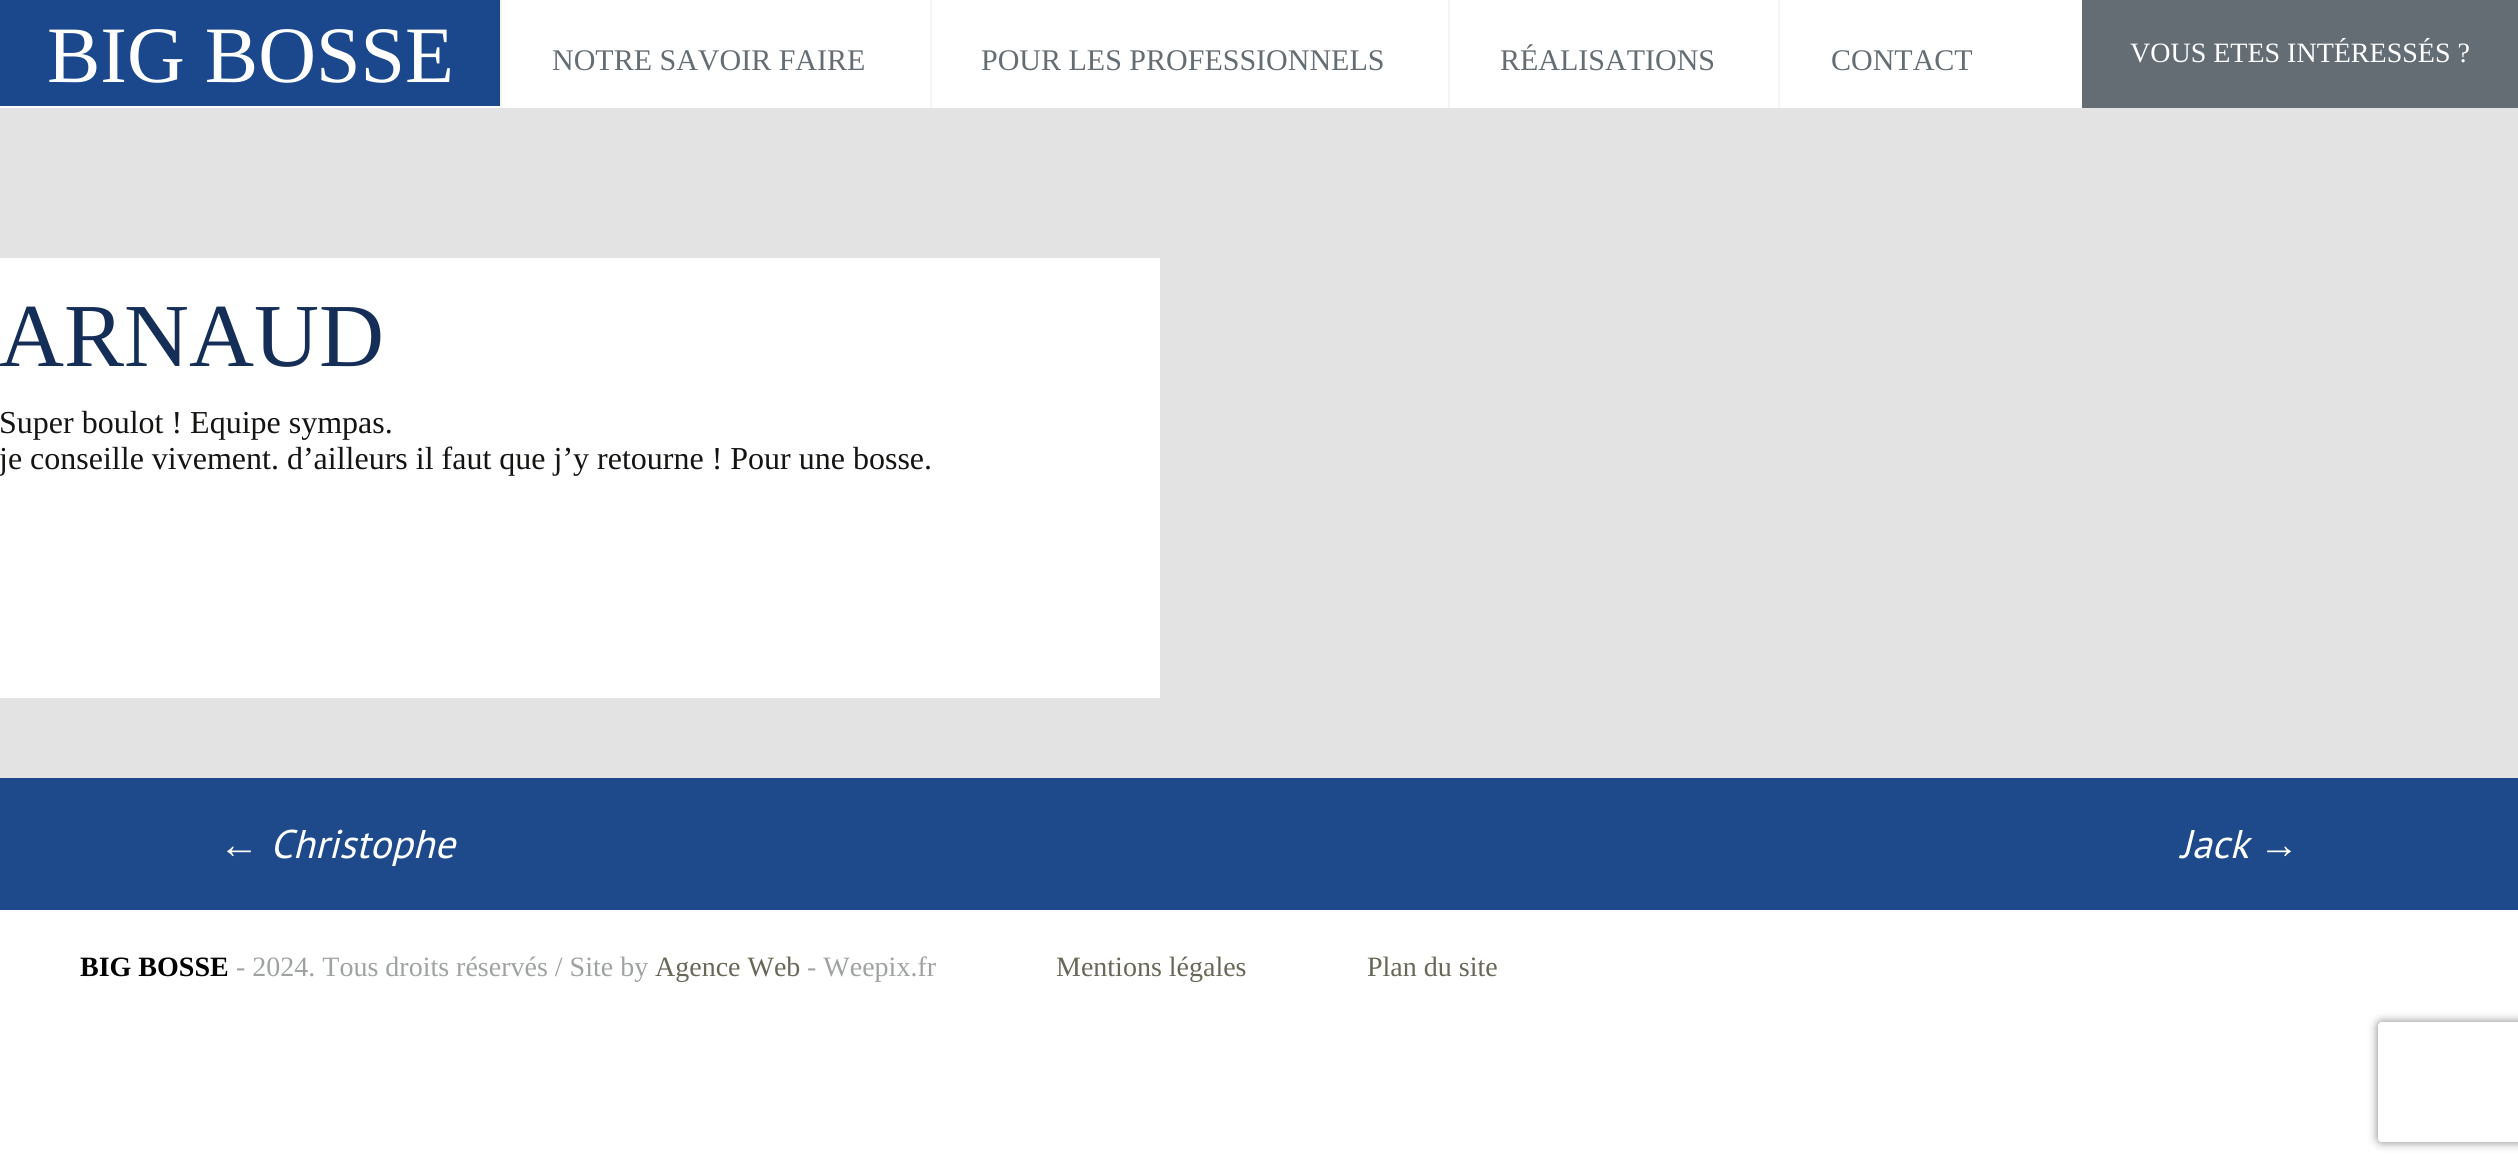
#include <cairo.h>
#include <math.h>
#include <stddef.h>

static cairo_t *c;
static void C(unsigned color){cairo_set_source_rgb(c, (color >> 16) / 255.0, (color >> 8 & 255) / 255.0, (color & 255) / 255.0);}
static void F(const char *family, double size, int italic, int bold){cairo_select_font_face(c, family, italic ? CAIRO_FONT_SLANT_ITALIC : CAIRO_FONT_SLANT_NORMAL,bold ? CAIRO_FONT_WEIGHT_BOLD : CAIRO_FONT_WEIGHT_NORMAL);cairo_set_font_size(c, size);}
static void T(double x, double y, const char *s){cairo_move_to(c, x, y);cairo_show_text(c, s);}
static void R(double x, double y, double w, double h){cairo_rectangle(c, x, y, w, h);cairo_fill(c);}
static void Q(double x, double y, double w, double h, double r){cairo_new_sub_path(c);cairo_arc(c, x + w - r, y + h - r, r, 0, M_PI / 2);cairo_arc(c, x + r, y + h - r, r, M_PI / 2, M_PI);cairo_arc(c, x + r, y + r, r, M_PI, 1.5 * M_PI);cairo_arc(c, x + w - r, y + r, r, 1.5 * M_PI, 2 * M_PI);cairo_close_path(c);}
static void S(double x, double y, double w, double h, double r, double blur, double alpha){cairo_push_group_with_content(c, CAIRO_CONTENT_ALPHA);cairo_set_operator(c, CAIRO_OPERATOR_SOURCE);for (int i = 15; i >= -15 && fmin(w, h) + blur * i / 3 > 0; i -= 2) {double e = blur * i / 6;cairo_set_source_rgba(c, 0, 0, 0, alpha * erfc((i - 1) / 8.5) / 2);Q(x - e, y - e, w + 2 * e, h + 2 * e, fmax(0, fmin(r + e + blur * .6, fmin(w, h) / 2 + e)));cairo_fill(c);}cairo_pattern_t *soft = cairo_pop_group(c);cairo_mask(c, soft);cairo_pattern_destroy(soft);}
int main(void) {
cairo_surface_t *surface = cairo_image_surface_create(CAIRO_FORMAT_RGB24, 2518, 1170);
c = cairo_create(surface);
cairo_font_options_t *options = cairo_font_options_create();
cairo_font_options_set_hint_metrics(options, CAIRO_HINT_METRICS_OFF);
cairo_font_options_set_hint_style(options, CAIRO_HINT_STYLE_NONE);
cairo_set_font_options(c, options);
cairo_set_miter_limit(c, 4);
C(0xffffff);
cairo_paint(c);
C(0x1b488d);
R(0,0,500,106);
F("Liberation Serif",80,0,0);
C(0xffffff);
T(47,82,"BIG BOSSE");
C(0xf4f4f4);
R(500,0,2,108);
F("Liberation Serif",30,0,0);
C(0x646d73);
T(552,70,"NOTRE SAVOIR FAIRE");
C(0xf4f4f4);
R(930,0,2,108);
C(0x646d73);
T(981,70,"POUR LES PROFESSIONNELS");
C(0xf4f4f4);
R(1448,0,2,108);
C(0x646d73);
T(1500,70,"RÉALISATIONS");
C(0xf4f4f4);
R(1778,0,2,108);
C(0x646d73);
T(1831,70,"CONTACT");
R(2082,0,436,108);
F("Liberation Serif",28,0,0);
C(0xffffff);
T(2130,62,"VOUS ETES INTÉRESSÉS ?");
C(0xe3e3e3);
R(0,108,2518,670);
C(0xffffff);
R(0,258,1160,440);
F("Liberation Serif",90,0,0);
C(0x142e58);
T(-1,366,"ARNAUD");
F("Liberation Serif",32,0,0);
C(0x141412);
T(-1,433,"Super boulot ! Equipe sympas.");
T(-1,469,"je conseille vivement. d’ailleurs il faut que j’y retourne ! Pour une bosse.");
C(0x1e4a8b);
R(0,778,2518,132);
F("Liberation Sans",40,1,0);
C(0xffffff);
T(219,858,"←");
F("PT Sans",40,1,0);
T(270,858,"Christophe");
T(2180,858,"Jack");
F("Liberation Sans",40,1,0);
T(2259,858,"→");
F("Liberation Serif",28,0,1);
C(0x000000);
T(80,976,"BIG BOSSE");
F("Liberation Serif",28,0,0);
C(0x9fa2a3);
T(236,976,"- 2024. Tous droits réservés / Site by");
C(0x686758);
T(655,976,"Agence Web");
C(0x9fa2a3);
T(807,976,"- Weepix.fr");
C(0x686758);
T(1056,976,"Mentions légales");
T(1367,976,"Plan du site");
cairo_save(c);
cairo_set_fill_rule(c,CAIRO_FILL_RULE_EVEN_ODD);
cairo_new_path(c);
cairo_move_to(c,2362,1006);
cairo_line_to(c,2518,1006);
cairo_line_to(c,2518,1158);
cairo_line_to(c,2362,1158);
cairo_close_path(c);
cairo_move_to(c,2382,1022);
cairo_line_to(c,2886,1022);
cairo_curve_to(c,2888,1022,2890,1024,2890,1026);
cairo_line_to(c,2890,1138);
cairo_curve_to(c,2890,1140,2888,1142,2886,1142);
cairo_line_to(c,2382,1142);
cairo_curve_to(c,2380,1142,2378,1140,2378,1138);
cairo_line_to(c,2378,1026);
cairo_curve_to(c,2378,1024,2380,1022,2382,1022);
cairo_close_path(c);
cairo_clip(c);
C(0x808080);
S(2378,1022,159,120,4,5,1);
cairo_restore(c);
cairo_surface_write_to_png(surface, "o.png");
cairo_font_options_destroy(options);
cairo_destroy(c);
cairo_surface_destroy(surface);
return 0;
}
